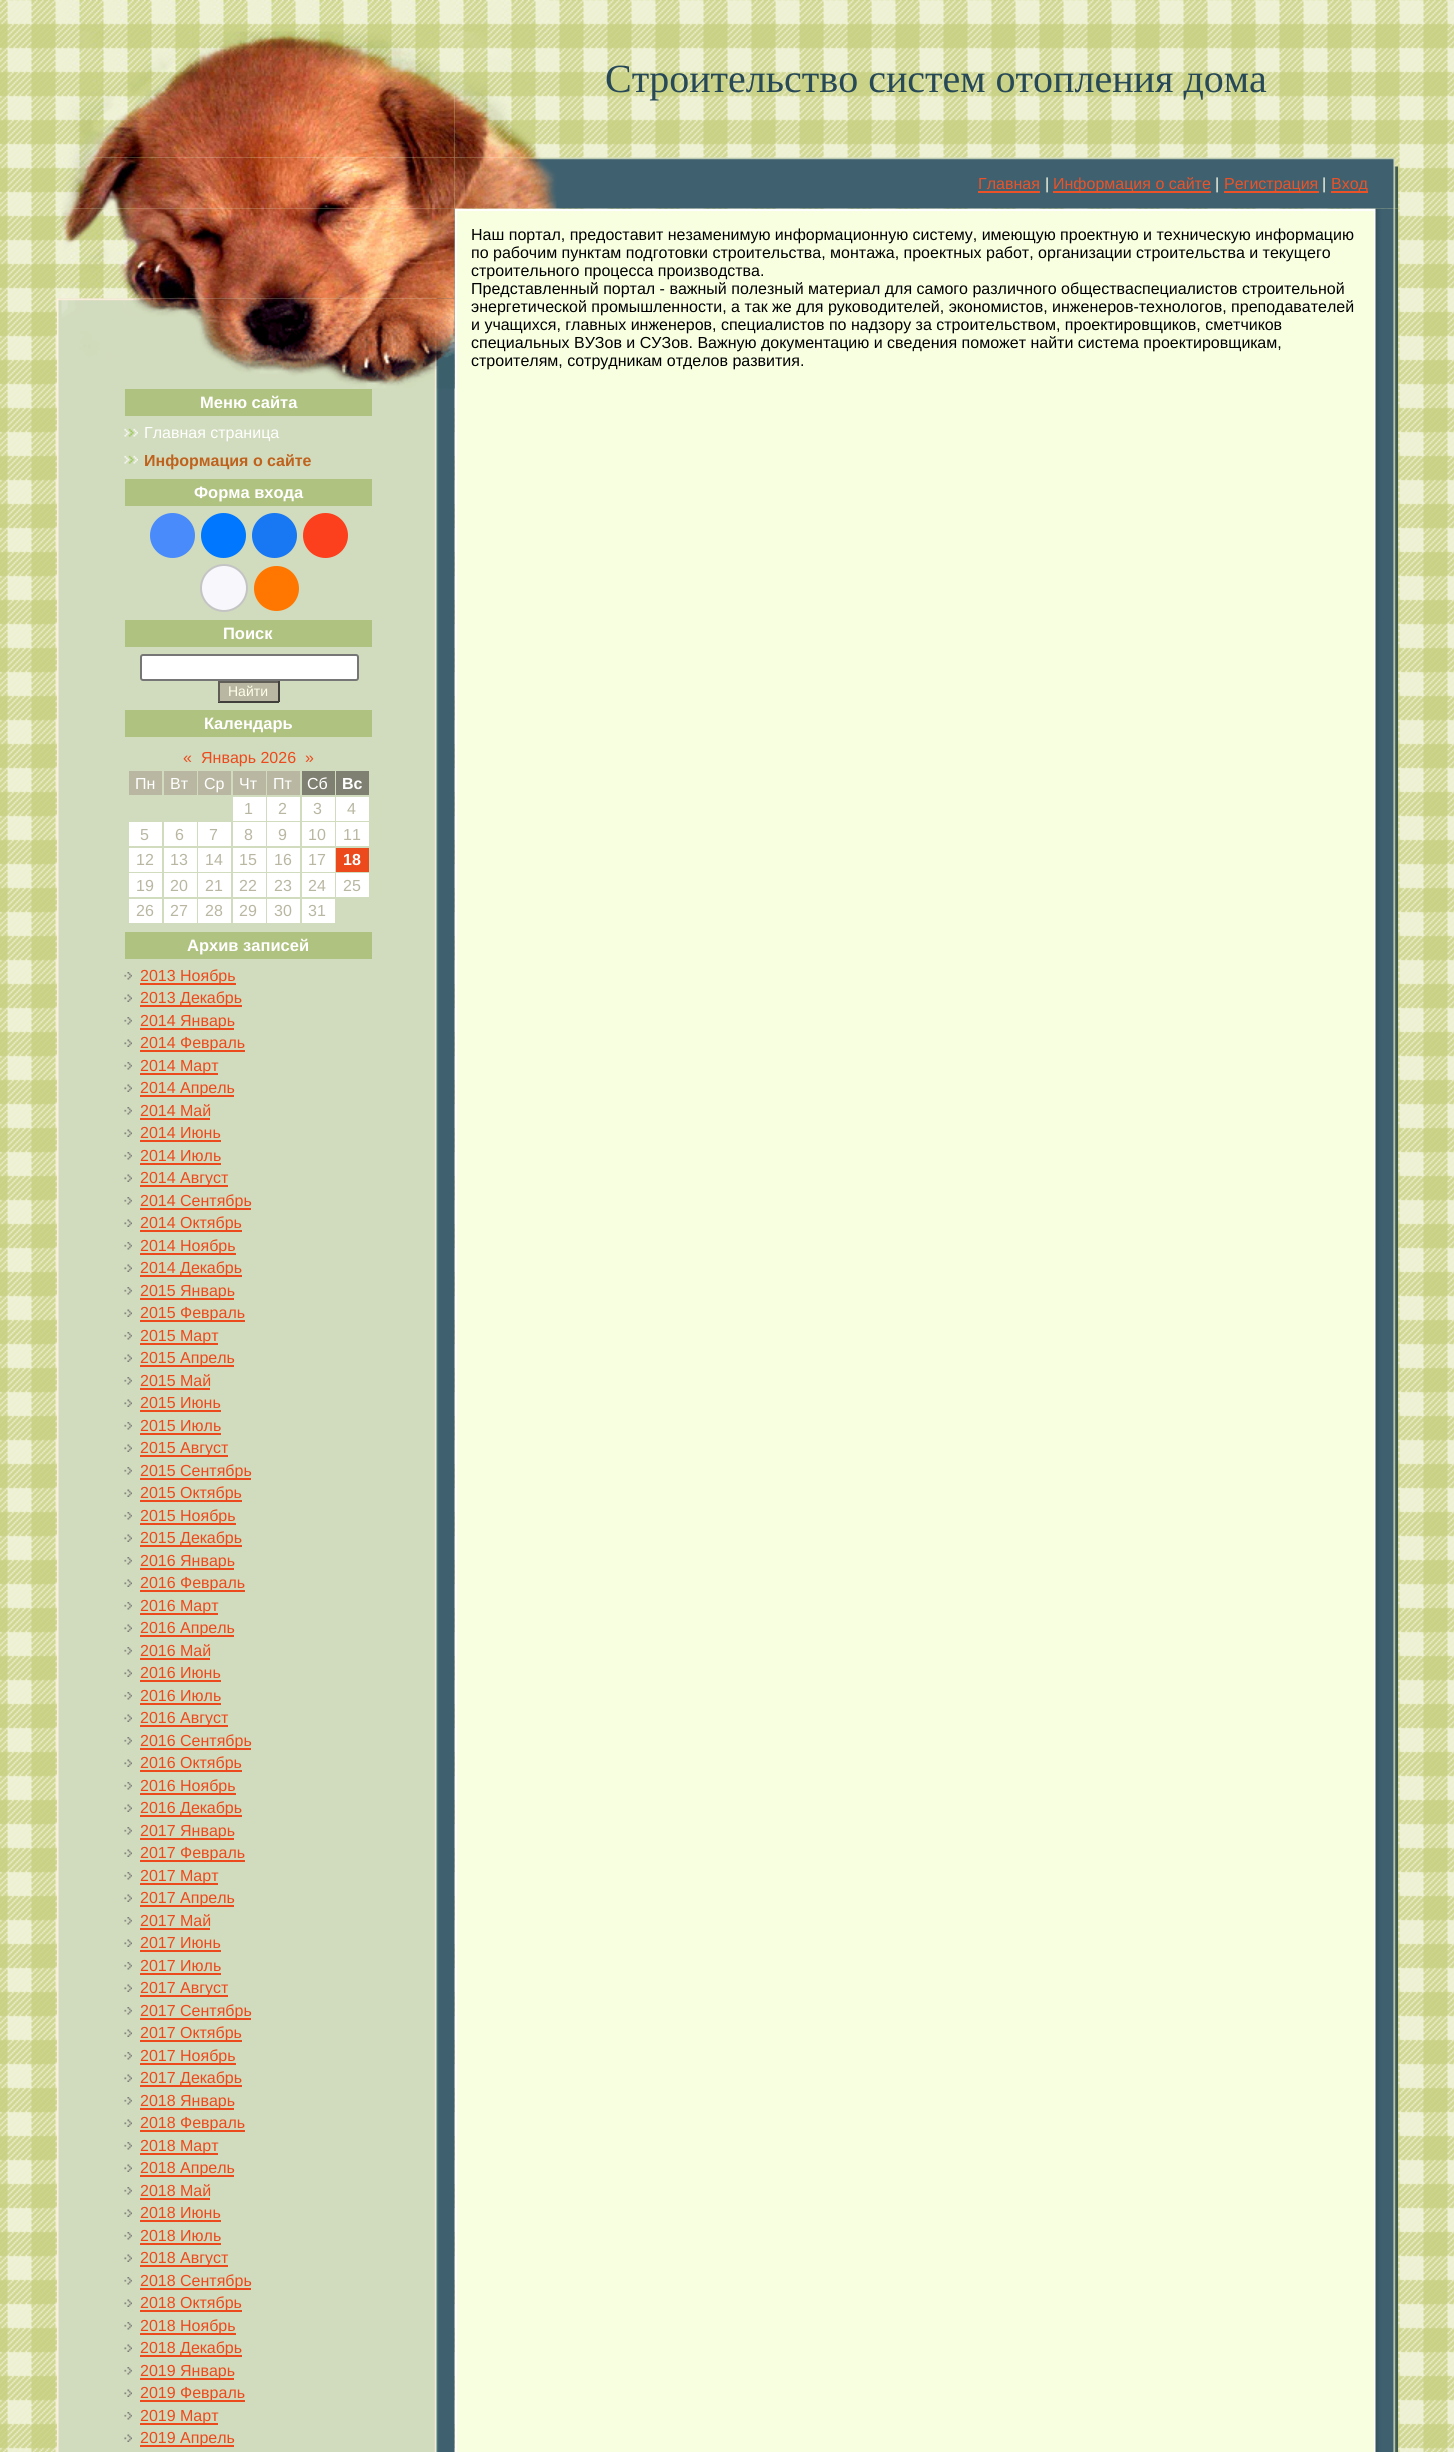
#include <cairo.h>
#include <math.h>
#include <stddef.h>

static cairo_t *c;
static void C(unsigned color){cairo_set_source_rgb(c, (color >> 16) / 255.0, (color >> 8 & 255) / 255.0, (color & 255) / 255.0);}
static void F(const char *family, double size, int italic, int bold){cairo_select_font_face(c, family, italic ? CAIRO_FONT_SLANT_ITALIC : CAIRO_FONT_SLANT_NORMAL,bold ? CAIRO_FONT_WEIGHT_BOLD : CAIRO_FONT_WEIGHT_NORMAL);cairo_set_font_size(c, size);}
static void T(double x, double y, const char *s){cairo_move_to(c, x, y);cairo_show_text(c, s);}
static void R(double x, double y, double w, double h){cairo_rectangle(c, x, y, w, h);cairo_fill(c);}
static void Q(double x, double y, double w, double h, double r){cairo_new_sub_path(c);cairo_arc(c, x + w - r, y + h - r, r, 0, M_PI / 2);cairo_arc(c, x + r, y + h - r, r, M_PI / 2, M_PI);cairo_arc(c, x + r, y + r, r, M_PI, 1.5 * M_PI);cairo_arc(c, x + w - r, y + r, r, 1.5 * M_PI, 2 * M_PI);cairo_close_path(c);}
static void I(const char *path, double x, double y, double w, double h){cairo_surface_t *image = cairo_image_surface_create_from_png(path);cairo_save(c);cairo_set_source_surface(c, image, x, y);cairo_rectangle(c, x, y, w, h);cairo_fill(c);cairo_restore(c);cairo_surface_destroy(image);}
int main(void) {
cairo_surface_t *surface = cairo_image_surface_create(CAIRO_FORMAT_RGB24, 1454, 2452);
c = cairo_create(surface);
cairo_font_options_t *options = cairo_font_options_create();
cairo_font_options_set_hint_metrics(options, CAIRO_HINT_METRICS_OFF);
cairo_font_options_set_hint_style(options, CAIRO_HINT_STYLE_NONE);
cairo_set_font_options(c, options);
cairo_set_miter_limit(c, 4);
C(0xffffff);
cairo_paint(c);
I("1.png",0,0,1454,2452);
I("3.png",454,0,95,158);
I("5.png",454,157,944,52);
I("2.png",57,0,398,158);
F("Liberation Serif",40,0,0);
C(0x274857);
T(605,92,"Строительство систем отопления дома");
I("7.png",57,208,398,2244);
I("4.png",57,157,398,52);
F("Liberation Sans",16,0,0);
C(0xec5227);
T(978,189,"Главная");
R(978,191,62,2);
C(0xffffe8);
T(1045,189,"|");
C(0xec5227);
R(1053,191,158,2);
T(1053,189,"Информация о сайте");
C(0xffffe8);
T(1215,189,"|");
C(0xec5227);
R(1224,191,95,2);
T(1224,189,"Регистрация");
C(0xffffe8);
T(1322,189,"|");
C(0xec5227);
R(1331,191,37,2);
T(1331,189,"Вход");
C(0xf8ffe1);
R(457,211,917,2241);
C(0xfefefe);
R(455,209,921,2);
R(1374,209,2,2243);
R(455,209,2,2243);
C(0x000000);
T(471,240,"Наш портал, предоставит незаменимую информационную систему, имеющую проектную и техническую информацию");
T(471,258,"по рабочим пунктам подготовки строительства, монтажа, проектных работ, организации строительства и текущего");
T(471,276,"строительного процесса производства.");
T(471,294,"Представленный портал - важный полезный материал для самого различного обществаспециалистов строительной");
T(471,312,"энергетической промышленности, а так же для руководителей, экономистов, инженеров-технологов, преподавателей");
T(471,330,"и учащихся, главных инженеров, специалистов по надзору за строительством, проектировщиков, сметчиков");
T(471,348,"специальных ВУЗов и СУЗов. Важную документацию и сведения поможет найти система проектировщикам,");
T(471,366,"строителям, сотрудникам отделов развития.");
I("6.png",1375,208,23,2244);
I("8.png",57,208,398,91);
I("9.png",57,298,398,91);
C(0xafc280);
R(125,389,247,27);
F("Liberation Sans",16.5,0,1);
C(0xffffff);
T(200,408,"Меню сайта");
I("10.png",124,428,14,9);
F("Liberation Sans",16,0,0);
T(144,438,"Главная страница");
I("10.png",124,455,14,9);
F("Liberation Sans",16,0,1);
C(0xbf621d);
T(144,466,"Информация о сайте");
C(0xafc280);
R(125,479,247,27);
F("Liberation Sans",16.5,0,1);
C(0xffffff);
T(194,498,"Форма входа");
C(0x498bfa);
cairo_new_path(c);
cairo_arc(c,172.5,535.5,22.5,0,2 * M_PI);
cairo_fill(c);
C(0x0077ff);
cairo_arc(c,223.5,535.5,22.5,0,2 * M_PI);
cairo_fill(c);
C(0x1877f2);
cairo_arc(c,274.5,535.5,22.5,0,2 * M_PI);
cairo_fill(c);
C(0xfc3f1d);
cairo_arc(c,325.5,535.5,22.5,0,2 * M_PI);
cairo_fill(c);
C(0xf8f8fc);
cairo_arc(c,224,588,23,0,2 * M_PI);
cairo_fill_preserve(c);
C(0xc4c4c4);
cairo_stroke(c);
C(0xff7700);
cairo_arc(c,276.5,588.5,22.5,0,2 * M_PI);
cairo_fill(c);
C(0xafc280);
R(125,620,247,27);
C(0xffffff);
T(223,639,"Поиск");
Q(141,655,217,25,2);
cairo_fill_preserve(c);
C(0x767676);
cairo_stroke(c);
C(0xb9b7a2);
R(220,683,58,18);
C(0x615e58);
R(218,681,61,2);
C(0x413f3b);
R(278,681,2,21);
R(218,701,61,2);
C(0x615e58);
R(218,681,2,21);
F("Liberation Sans",14,0,0);
C(0xffffe8);
T(228,696,"Найти");
C(0xafc280);
R(125,710,247,27);
F("Liberation Sans",16.5,0,1);
C(0xffffff);
T(204,729,"Календарь");
F("Liberation Sans",16,0,0);
C(0xec4a1d);
T(183,763,"«");
T(201,763,"Январь 2026");
T(305,763,"»");
C(0xb9b7a2);
R(129,771,33,24);
C(0xffffff);
T(135,789,"Пн");
C(0xb9b7a2);
R(164,771,33,24);
C(0xffffff);
T(170,789,"Вт");
C(0xb9b7a2);
R(198,771,33,24);
C(0xffffff);
T(204,789,"Ср");
C(0xb9b7a2);
R(233,771,33,24);
C(0xffffff);
T(239,789,"Чт");
C(0xb9b7a2);
R(267,771,33,24);
C(0xffffff);
T(273,789,"Пт");
C(0x808072);
R(302,771,33,24);
C(0xffffff);
T(307,789,"Сб");
C(0x808072);
R(336,771,33,24);
F("Liberation Sans",16,0,1);
C(0xffffff);
T(342,789,"Вс");
R(233,797,33,24);
F("Liberation Sans",16,0,0);
C(0xb9b7a2);
T(244,814,"1");
C(0xffffff);
R(267,797,33,24);
C(0xb9b7a2);
T(278,814,"2");
C(0xffffff);
R(302,797,33,24);
C(0xb9b7a2);
T(313,814,"3");
C(0xffffff);
R(336,797,33,24);
C(0xb9b7a2);
T(347,814,"4");
C(0xffffff);
R(129,822,33,24);
C(0xb9b7a2);
T(140,840,"5");
C(0xffffff);
R(164,822,33,24);
C(0xb9b7a2);
T(175,840,"6");
C(0xffffff);
R(198,822,33,24);
C(0xb9b7a2);
T(209,840,"7");
C(0xffffff);
R(233,822,33,24);
C(0xb9b7a2);
T(244,840,"8");
C(0xffffff);
R(267,822,33,24);
C(0xb9b7a2);
T(278,840,"9");
C(0xffffff);
R(302,822,33,24);
C(0xb9b7a2);
T(308,840,"10");
C(0xffffff);
R(336,822,33,24);
C(0xb9b7a2);
T(343,840,"11");
C(0xffffff);
R(129,848,33,24);
C(0xb9b7a2);
T(136,865,"12");
C(0xffffff);
R(164,848,33,24);
C(0xb9b7a2);
T(170,865,"13");
C(0xffffff);
R(198,848,33,24);
C(0xb9b7a2);
T(205,865,"14");
C(0xffffff);
R(233,848,33,24);
C(0xb9b7a2);
T(239,865,"15");
C(0xffffff);
R(267,848,33,24);
C(0xb9b7a2);
T(274,865,"16");
C(0xffffff);
R(302,848,33,24);
C(0xb9b7a2);
T(308,865,"17");
C(0xec4a1d);
R(336,848,33,24);
F("Liberation Sans",16,0,1);
C(0xffffff);
T(343,865,"18");
R(129,873,33,24);
F("Liberation Sans",16,0,0);
C(0xb9b7a2);
T(136,891,"19");
C(0xffffff);
R(164,873,33,24);
C(0xb9b7a2);
T(170,891,"20");
C(0xffffff);
R(198,873,33,24);
C(0xb9b7a2);
T(205,891,"21");
C(0xffffff);
R(233,873,33,24);
C(0xb9b7a2);
T(239,891,"22");
C(0xffffff);
R(267,873,33,24);
C(0xb9b7a2);
T(274,891,"23");
C(0xffffff);
R(302,873,33,24);
C(0xb9b7a2);
T(308,891,"24");
C(0xffffff);
R(336,873,33,24);
C(0xb9b7a2);
T(343,891,"25");
C(0xffffff);
R(129,899,33,24);
C(0xb9b7a2);
T(136,916,"26");
C(0xffffff);
R(164,899,33,24);
C(0xb9b7a2);
T(170,916,"27");
C(0xffffff);
R(198,899,33,24);
C(0xb9b7a2);
T(205,916,"28");
C(0xffffff);
R(233,899,33,24);
C(0xb9b7a2);
T(239,916,"29");
C(0xffffff);
R(267,899,33,24);
C(0xb9b7a2);
T(274,916,"30");
C(0xffffff);
R(302,899,33,24);
C(0xb9b7a2);
T(308,916,"31");
C(0xafc280);
R(125,932,247,27);
F("Liberation Sans",16.5,0,1);
C(0xffffff);
T(187,951,"Архив записей");
I("11.png",124,972,8,8);
C(0xec4a1d);
R(140,983,96,2);
F("Liberation Sans",16,0,0);
T(140,981,"2013 Ноябрь");
I("12.png",124,994,8,8);
R(140,1005,102,2);
T(140,1003,"2013 Декабрь");
I("11.png",124,1017,8,8);
R(140,1028,94,2);
T(140,1026,"2014 Январь");
I("12.png",124,1039,8,8);
R(140,1050,105,2);
T(140,1048,"2014 Февраль");
I("11.png",124,1062,8,8);
R(140,1073,78,2);
T(140,1071,"2014 Март");
I("12.png",124,1084,8,8);
R(140,1095,94,2);
T(140,1093,"2014 Апрель");
I("11.png",124,1107,8,8);
T(140,1116,"2014 Май");
R(140,1118,70,2);
I("12.png",124,1129,8,8);
T(140,1138,"2014 Июнь");
R(140,1140,81,2);
I("11.png",124,1152,8,8);
T(140,1161,"2014 Июль");
R(140,1163,81,2);
I("12.png",124,1174,8,8);
R(140,1185,88,2);
T(140,1183,"2014 Август");
I("11.png",124,1197,8,8);
R(140,1208,111,2);
T(140,1206,"2014 Сентябрь");
I("12.png",124,1219,8,8);
R(140,1230,102,2);
T(140,1228,"2014 Октябрь");
I("11.png",124,1242,8,8);
R(140,1253,96,2);
T(140,1251,"2014 Ноябрь");
I("12.png",124,1264,8,8);
R(140,1275,102,2);
T(140,1273,"2014 Декабрь");
I("11.png",124,1287,8,8);
R(140,1298,94,2);
T(140,1296,"2015 Январь");
I("12.png",124,1309,8,8);
R(140,1320,105,2);
T(140,1318,"2015 Февраль");
I("11.png",124,1332,8,8);
R(140,1343,78,2);
T(140,1341,"2015 Март");
I("12.png",124,1354,8,8);
R(140,1365,94,2);
T(140,1363,"2015 Апрель");
I("11.png",124,1377,8,8);
T(140,1386,"2015 Май");
R(140,1388,70,2);
I("12.png",124,1399,8,8);
T(140,1408,"2015 Июнь");
R(140,1410,81,2);
I("11.png",124,1422,8,8);
T(140,1431,"2015 Июль");
R(140,1433,81,2);
I("12.png",124,1444,8,8);
R(140,1455,88,2);
T(140,1453,"2015 Август");
I("11.png",124,1467,8,8);
R(140,1478,111,2);
T(140,1476,"2015 Сентябрь");
I("12.png",124,1489,8,8);
R(140,1500,102,2);
T(140,1498,"2015 Октябрь");
I("11.png",124,1512,8,8);
R(140,1523,96,2);
T(140,1521,"2015 Ноябрь");
I("12.png",124,1534,8,8);
R(140,1545,102,2);
T(140,1543,"2015 Декабрь");
I("11.png",124,1557,8,8);
R(140,1568,94,2);
T(140,1566,"2016 Январь");
I("12.png",124,1579,8,8);
R(140,1590,105,2);
T(140,1588,"2016 Февраль");
I("11.png",124,1602,8,8);
R(140,1613,78,2);
T(140,1611,"2016 Март");
I("12.png",124,1624,8,8);
R(140,1635,94,2);
T(140,1633,"2016 Апрель");
I("11.png",124,1647,8,8);
T(140,1656,"2016 Май");
R(140,1658,70,2);
I("12.png",124,1669,8,8);
T(140,1678,"2016 Июнь");
R(140,1680,81,2);
I("11.png",124,1692,8,8);
T(140,1701,"2016 Июль");
R(140,1703,81,2);
I("12.png",124,1714,8,8);
R(140,1725,88,2);
T(140,1723,"2016 Август");
I("11.png",124,1737,8,8);
R(140,1748,111,2);
T(140,1746,"2016 Сентябрь");
I("12.png",124,1759,8,8);
R(140,1770,102,2);
T(140,1768,"2016 Октябрь");
I("11.png",124,1782,8,8);
R(140,1793,96,2);
T(140,1791,"2016 Ноябрь");
I("12.png",124,1804,8,8);
R(140,1815,102,2);
T(140,1813,"2016 Декабрь");
I("11.png",124,1827,8,8);
R(140,1838,94,2);
T(140,1836,"2017 Январь");
I("12.png",124,1849,8,8);
R(140,1860,105,2);
T(140,1858,"2017 Февраль");
I("11.png",124,1872,8,8);
R(140,1883,78,2);
T(140,1881,"2017 Март");
I("12.png",124,1894,8,8);
R(140,1905,94,2);
T(140,1903,"2017 Апрель");
I("11.png",124,1917,8,8);
T(140,1926,"2017 Май");
R(140,1928,70,2);
I("12.png",124,1939,8,8);
T(140,1948,"2017 Июнь");
R(140,1950,81,2);
I("11.png",124,1962,8,8);
T(140,1971,"2017 Июль");
R(140,1973,81,2);
I("12.png",124,1984,8,8);
R(140,1995,88,2);
T(140,1993,"2017 Август");
I("11.png",124,2007,8,8);
R(140,2018,111,2);
T(140,2016,"2017 Сентябрь");
I("12.png",124,2029,8,8);
R(140,2040,102,2);
T(140,2038,"2017 Октябрь");
I("11.png",124,2052,8,8);
R(140,2063,96,2);
T(140,2061,"2017 Ноябрь");
I("12.png",124,2074,8,8);
R(140,2085,102,2);
T(140,2083,"2017 Декабрь");
I("11.png",124,2097,8,8);
R(140,2108,94,2);
T(140,2106,"2018 Январь");
I("12.png",124,2119,8,8);
R(140,2130,105,2);
T(140,2128,"2018 Февраль");
I("11.png",124,2142,8,8);
R(140,2153,78,2);
T(140,2151,"2018 Март");
I("12.png",124,2164,8,8);
R(140,2175,94,2);
T(140,2173,"2018 Апрель");
I("11.png",124,2187,8,8);
T(140,2196,"2018 Май");
R(140,2198,70,2);
I("12.png",124,2209,8,8);
T(140,2218,"2018 Июнь");
R(140,2220,81,2);
I("11.png",124,2232,8,8);
T(140,2241,"2018 Июль");
R(140,2243,81,2);
I("12.png",124,2254,8,8);
R(140,2265,88,2);
T(140,2263,"2018 Август");
I("11.png",124,2277,8,8);
R(140,2288,111,2);
T(140,2286,"2018 Сентябрь");
I("12.png",124,2299,8,8);
R(140,2310,102,2);
T(140,2308,"2018 Октябрь");
I("11.png",124,2322,8,8);
R(140,2333,96,2);
T(140,2331,"2018 Ноябрь");
I("12.png",124,2344,8,8);
R(140,2355,102,2);
T(140,2353,"2018 Декабрь");
I("11.png",124,2367,8,8);
R(140,2378,94,2);
T(140,2376,"2019 Январь");
I("12.png",124,2389,8,8);
R(140,2400,105,2);
T(140,2398,"2019 Февраль");
I("11.png",124,2412,8,8);
R(140,2423,78,2);
T(140,2421,"2019 Март");
I("12.png",124,2434,8,8);
R(140,2445,94,2);
T(140,2443,"2019 Апрель");
cairo_surface_write_to_png(surface, "o.png");
cairo_font_options_destroy(options);
cairo_destroy(c);
cairo_surface_destroy(surface);
return 0;
}
